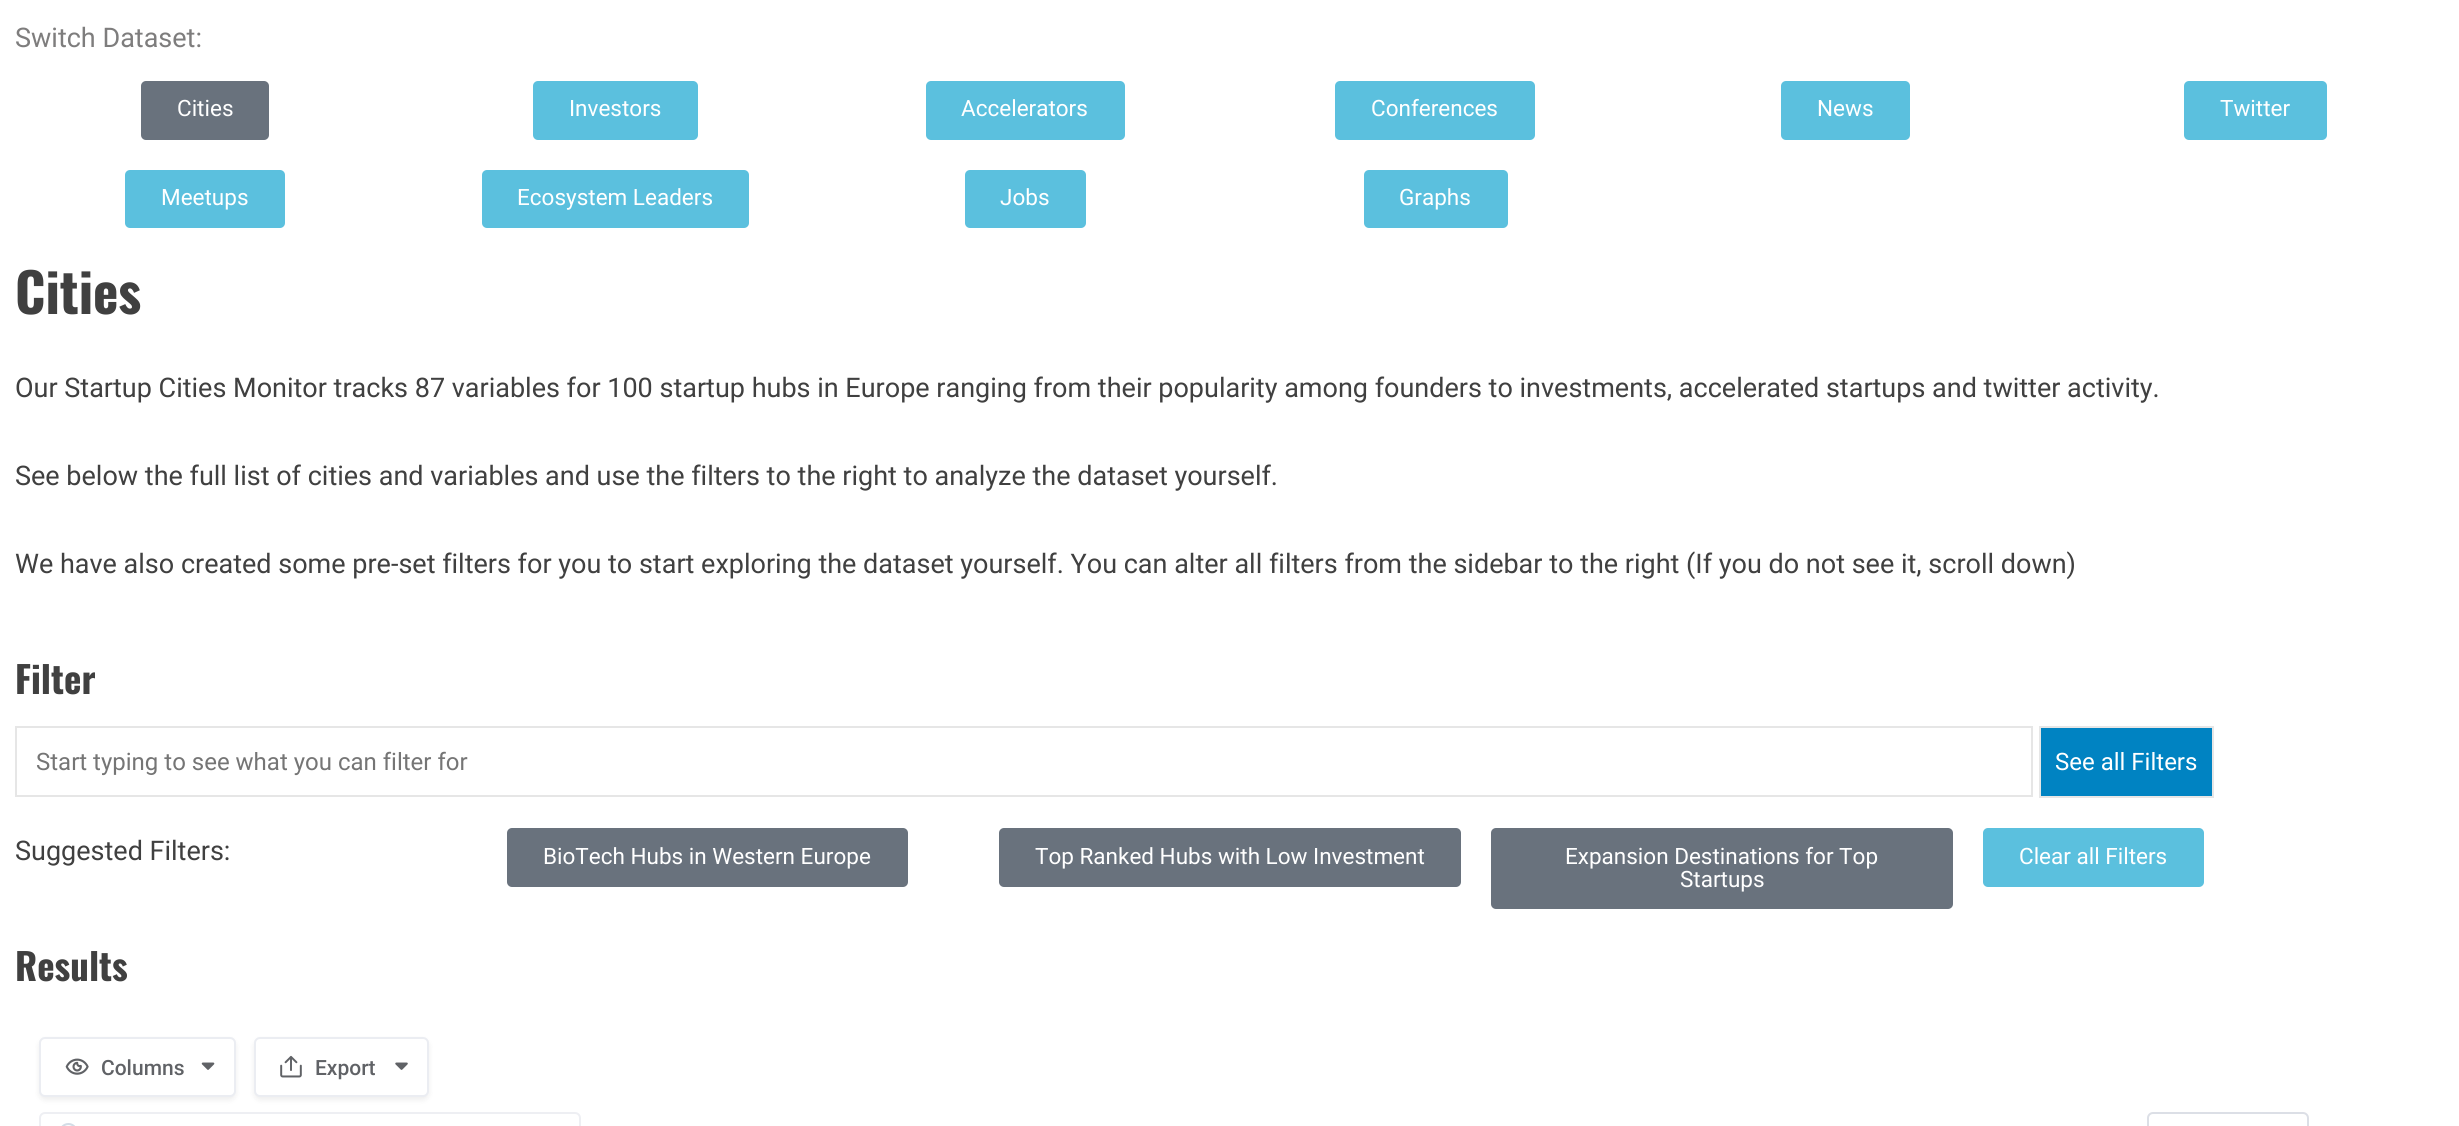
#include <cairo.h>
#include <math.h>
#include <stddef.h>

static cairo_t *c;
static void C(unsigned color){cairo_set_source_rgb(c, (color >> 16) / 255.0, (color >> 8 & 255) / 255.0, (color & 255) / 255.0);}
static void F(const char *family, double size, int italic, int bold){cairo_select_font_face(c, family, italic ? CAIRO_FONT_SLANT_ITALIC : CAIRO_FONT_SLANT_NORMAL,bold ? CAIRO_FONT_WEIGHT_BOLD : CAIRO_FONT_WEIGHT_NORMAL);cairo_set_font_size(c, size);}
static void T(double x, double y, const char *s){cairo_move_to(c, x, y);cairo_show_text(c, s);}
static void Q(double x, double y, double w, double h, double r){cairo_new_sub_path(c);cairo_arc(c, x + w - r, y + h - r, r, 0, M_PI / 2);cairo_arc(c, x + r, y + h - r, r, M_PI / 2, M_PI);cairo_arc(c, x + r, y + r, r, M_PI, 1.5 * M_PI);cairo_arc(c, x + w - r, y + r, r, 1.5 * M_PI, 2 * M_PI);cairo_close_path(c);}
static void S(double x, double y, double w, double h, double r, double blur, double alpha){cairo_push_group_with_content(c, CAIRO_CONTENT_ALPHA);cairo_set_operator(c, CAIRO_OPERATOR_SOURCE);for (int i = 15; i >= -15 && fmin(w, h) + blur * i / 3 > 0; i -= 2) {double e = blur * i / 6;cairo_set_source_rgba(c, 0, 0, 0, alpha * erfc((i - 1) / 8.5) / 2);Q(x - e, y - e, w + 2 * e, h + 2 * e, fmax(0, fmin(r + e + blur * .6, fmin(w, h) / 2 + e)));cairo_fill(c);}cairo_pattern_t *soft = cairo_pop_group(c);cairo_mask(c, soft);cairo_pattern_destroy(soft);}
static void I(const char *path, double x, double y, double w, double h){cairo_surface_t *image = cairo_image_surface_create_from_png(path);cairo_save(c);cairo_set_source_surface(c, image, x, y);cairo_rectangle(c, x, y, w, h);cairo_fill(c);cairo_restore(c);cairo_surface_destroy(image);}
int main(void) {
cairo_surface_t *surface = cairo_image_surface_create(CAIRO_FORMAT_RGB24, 2459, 1126);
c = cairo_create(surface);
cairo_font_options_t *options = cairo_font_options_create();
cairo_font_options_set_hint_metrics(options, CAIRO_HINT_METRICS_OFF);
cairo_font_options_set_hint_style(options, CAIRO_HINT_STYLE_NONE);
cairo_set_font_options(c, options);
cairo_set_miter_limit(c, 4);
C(0xffffff);
cairo_paint(c);
F("Roboto",27,0,0);
C(0x7e7d7d);
T(15,47,"Switch Dataset:");
C(0x69727d);
Q(141,81,128,59,5);
cairo_fill(c);
F("Roboto",22.5,0,0);
C(0xffffff);
T(177,116,"Cities");
C(0x5bc0de);
Q(533,81,165,59,5);
cairo_fill(c);
C(0xffffff);
T(569,116,"Investors");
C(0x5bc0de);
Q(926,81,199,59,5);
cairo_fill(c);
C(0xffffff);
T(961,116,"Accelerators");
C(0x5bc0de);
Q(1335,81,200,59,5);
cairo_fill(c);
C(0xffffff);
T(1371,116,"Conferences");
C(0x5bc0de);
Q(1781,81,129,59,5);
cairo_fill(c);
C(0xffffff);
T(1817,116,"News");
C(0x5bc0de);
Q(2184,81,143,59,5);
cairo_fill(c);
C(0xffffff);
T(2220,116,"Twitter");
C(0x5bc0de);
Q(125,170,160,58,5);
cairo_fill(c);
C(0xffffff);
T(161,205,"Meetups");
C(0x5bc0de);
Q(482,170,267,58,5);
cairo_fill(c);
C(0xffffff);
T(517,205,"Ecosystem Leaders");
C(0x5bc0de);
Q(965,170,121,58,5);
cairo_fill(c);
C(0xffffff);
T(1000,205,"Jobs");
C(0x5bc0de);
Q(1364,170,144,58,5);
cairo_fill(c);
C(0xffffff);
T(1399,205,"Graphs");
F("Oswald",54,0,1);
C(0x404040);
T(15,314,"Cities");
F("Roboto",27,0,0);
T(15,397,"Our Startup Cities Monitor tracks 87 variables for 100 startup hubs in Europe ranging from their popularity among founders to investments, accelerated startups and twitter activity.");
T(15,485,"See below the full list of cities and variables and use the filters to the right to analyze the dataset yourself.");
T(15,573,"We have also created some pre-set filters for you to start exploring the dataset yourself. You can alter all filters from the sidebar to the right (If you do not see it, scroll down)");
F("Oswald",37,0,1);
T(15,694,"Filter");
cairo_rectangle(c,16,727,2016,69);
C(0xe6e6e6);
cairo_stroke(c);
F("Roboto",24,0,0);
C(0x757575);
T(36,770,"Start typing to see what you can filter for");
C(0x0083c2);
cairo_rectangle(c,2040,727,173,70);
cairo_fill_preserve(c);
C(0xe6e6e6);
cairo_stroke(c);
C(0xffffff);
T(2055,770,"See all Filters");
F("Roboto",27,0,0);
C(0x404040);
T(15,860,"Suggested Filters:");
C(0x69727d);
Q(507,828,401,59,5);
cairo_fill(c);
F("Roboto",22.5,0,0);
C(0xffffff);
T(543,864,"BioTech Hubs in Western Europe");
C(0x69727d);
Q(999,828,462,59,5);
cairo_fill(c);
C(0xffffff);
T(1035,864,"Top Ranked Hubs with Low Investment");
C(0x69727d);
Q(1491,828,462,81,5);
cairo_fill(c);
C(0xffffff);
T(1565,864,"Expansion Destinations for Top");
T(1680,887,"Startups");
C(0x5bc0de);
Q(1983,828,221,59,5);
cairo_fill(c);
C(0xffffff);
T(2019,864,"Clear all Filters");
F("Oswald",37,0,1);
C(0x404040);
T(15,981,"Results");
C(0x000000);
S(39,1040,197,60,6,3,.07);
C(0xffffff);
Q(40,1038,195,58,5);
cairo_fill_preserve(c);
C(0xebedf2);
cairo_stroke(c);
I("1.png",65,1058,24,17);
F("Roboto Medium",21,0,0);
C(0x606266);
T(101,1075,"Columns");
I("2.png",201,1062,14,8);
C(0x000000);
S(254,1040,175,60,6,3,.07);
C(0xffffff);
Q(255,1038,173,58,5);
cairo_fill_preserve(c);
C(0xebedf2);
cairo_stroke(c);
I("3.png",280,1055,22,23);
C(0x606266);
T(315,1075,"Export");
I("4.png",395,1062,13,8);
I("5.png",61,1123,14,3);
Q(40,1113,540,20,5);
C(0xeeeff3);
cairo_stroke(c);
Q(2148,1113,160,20,5);
C(0xdcdfe6);
cairo_stroke(c);
cairo_surface_write_to_png(surface, "o.png");
cairo_font_options_destroy(options);
cairo_destroy(c);
cairo_surface_destroy(surface);
return 0;
}
